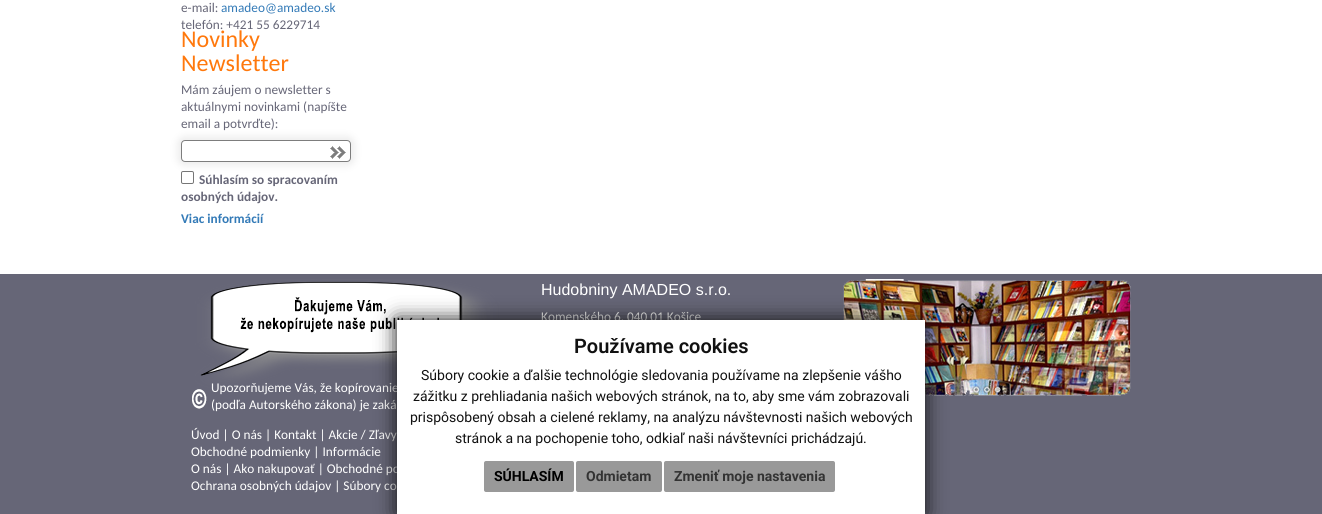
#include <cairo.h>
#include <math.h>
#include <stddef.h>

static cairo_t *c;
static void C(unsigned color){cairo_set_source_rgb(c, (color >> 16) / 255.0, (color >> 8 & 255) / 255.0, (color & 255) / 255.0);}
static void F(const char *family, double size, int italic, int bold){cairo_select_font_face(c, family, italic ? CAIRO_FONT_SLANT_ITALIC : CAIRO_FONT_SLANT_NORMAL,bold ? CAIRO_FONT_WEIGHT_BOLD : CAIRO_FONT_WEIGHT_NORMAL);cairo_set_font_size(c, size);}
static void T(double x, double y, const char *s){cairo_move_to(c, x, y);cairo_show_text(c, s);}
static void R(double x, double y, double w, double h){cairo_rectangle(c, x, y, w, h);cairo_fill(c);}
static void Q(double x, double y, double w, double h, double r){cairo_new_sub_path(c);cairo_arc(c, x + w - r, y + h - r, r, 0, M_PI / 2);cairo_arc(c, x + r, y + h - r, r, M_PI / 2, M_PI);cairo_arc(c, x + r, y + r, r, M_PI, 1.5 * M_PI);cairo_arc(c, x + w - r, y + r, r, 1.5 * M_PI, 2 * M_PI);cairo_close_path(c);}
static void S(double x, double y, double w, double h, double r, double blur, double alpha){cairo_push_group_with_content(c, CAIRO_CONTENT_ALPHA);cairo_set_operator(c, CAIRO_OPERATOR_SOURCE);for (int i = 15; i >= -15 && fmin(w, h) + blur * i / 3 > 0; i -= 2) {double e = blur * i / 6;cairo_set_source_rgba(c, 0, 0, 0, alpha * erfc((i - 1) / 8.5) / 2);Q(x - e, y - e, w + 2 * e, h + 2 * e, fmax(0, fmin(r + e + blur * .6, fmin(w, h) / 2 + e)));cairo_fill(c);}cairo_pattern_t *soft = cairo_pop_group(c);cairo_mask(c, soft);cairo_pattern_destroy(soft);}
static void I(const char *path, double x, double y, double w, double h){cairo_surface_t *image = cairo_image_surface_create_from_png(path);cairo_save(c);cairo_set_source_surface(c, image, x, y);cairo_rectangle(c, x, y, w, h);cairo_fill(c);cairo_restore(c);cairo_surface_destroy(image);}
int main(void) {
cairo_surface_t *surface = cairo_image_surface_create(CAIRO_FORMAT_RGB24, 1322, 514);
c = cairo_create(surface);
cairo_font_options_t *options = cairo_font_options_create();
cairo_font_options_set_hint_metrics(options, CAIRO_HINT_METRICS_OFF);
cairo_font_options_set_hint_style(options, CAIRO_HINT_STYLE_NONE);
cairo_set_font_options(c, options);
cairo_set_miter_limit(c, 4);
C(0xffffff);
cairo_paint(c);
F("Carlito",13.3,0,0);
C(0x666677);
T(181,12,"e-mail:");
C(0x337ab7);
T(221,12,"amadeo@amadeo.sk");
C(0x666677);
T(181,29,"telefón: +421 55 6229714");
F("Carlito",24,0,0);
C(0xff780c);
T(181,47,"Novinky");
T(181,71,"Newsletter");
F("Carlito",13.3,0,0);
C(0x666677);
T(181,94,"Mám záujem o newsletter s");
T(181,111,"aktuálnymi novinkami (napíšte");
T(181,128,"email a potvrďte):");
cairo_save(c);
cairo_set_fill_rule(c,CAIRO_FILL_RULE_EVEN_ODD);
cairo_new_path(c);
cairo_move_to(c,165,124);
cairo_line_to(c,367,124);
cairo_line_to(c,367,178);
cairo_line_to(c,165,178);
cairo_close_path(c);
cairo_move_to(c,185,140);
cairo_line_to(c,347,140);
cairo_curve_to(c,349,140,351,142,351,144);
cairo_line_to(c,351,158);
cairo_curve_to(c,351,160,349,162,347,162);
cairo_line_to(c,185,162);
cairo_curve_to(c,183,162,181,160,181,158);
cairo_line_to(c,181,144);
cairo_curve_to(c,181,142,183,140,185,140);
cairo_close_path(c);
cairo_clip(c);
C(0xeeeeee);
S(177,136,178,30,8,3.5,1);
cairo_restore(c);
I("1.png",330,146,16,13);
Q(181.5,140.5,169,21,3.5);
C(0x7d7d7d);
cairo_set_line_width(c,1);
cairo_stroke(c);
Q(181.5,171.5,12,12,1.5);
C(0x767676);
cairo_stroke(c);
F("Carlito",13.3,0,1);
C(0x666677);
T(199,184,"Súhlasím so spracovaním");
T(181,201,"osobných údajov.");
C(0x337ab7);
T(181,223,"Viac informácií");
C(0x666677);
R(0,274,1322,240);
I("2.png",192,279,939,130);
F("Liberation Sans",16,0,0);
C(0xffffff);
T(541,295,"Hudobniny AMADEO s.r.o.");
F("Carlito",13.3,0,0);
T(541,321,"Komenského 6, 040 01 Košice");
T(211,392,"Upozorňujeme Vás, že kopírovanie");
T(211,409,"(podľa Autorského zákona) je zaká");
T(191,439,"Úvod | O nás | Kontakt | Akcie / Zľavy");
T(191,456,"Obchodné podmienky | Informácie");
T(191,473,"O nás | Ako nakupovať | Obchodné po");
T(191,490,"Ochrana osobných údajov | Súbory co");
C(0x111111);
S(397,320,528,194,0,10,1);
C(0xffffff);
R(397,320,528,194);
F("Roboto SemiBold",20,0,0);
C(0x111111);
T(574,353,"Používame cookies");
F("Roboto",14,0,0);
T(421,380,"Súbory cookie a ďalšie technológie sledovania používame na zlepšenie vášho");
T(413,401,"zážitku z prehliadania našich webových stránok, na to, aby sme vám zobrazovali");
T(410,422,"prispôsobený obsah a cielené reklamy, na analýzu návštevnosti našich webových");
T(455,443,"stránok a na pochopenie toho, odkiaľ naši návštevníci prichádzajú.");
C(0x999999);
Q(484,461,90,31,2);
cairo_fill(c);
F("Roboto",14,0,1);
C(0x000000);
T(494,481,"SÚHLASÍM");
C(0x999999);
Q(576,461,86,31,2);
cairo_fill(c);
C(0x333333);
T(586,481,"Odmietam");
C(0x999999);
Q(664,461,171,31,2);
cairo_fill(c);
C(0x333333);
T(674,481,"Zmeniť moje nastavenia");
cairo_surface_write_to_png(surface, "o.png");
cairo_font_options_destroy(options);
cairo_destroy(c);
cairo_surface_destroy(surface);
return 0;
}
